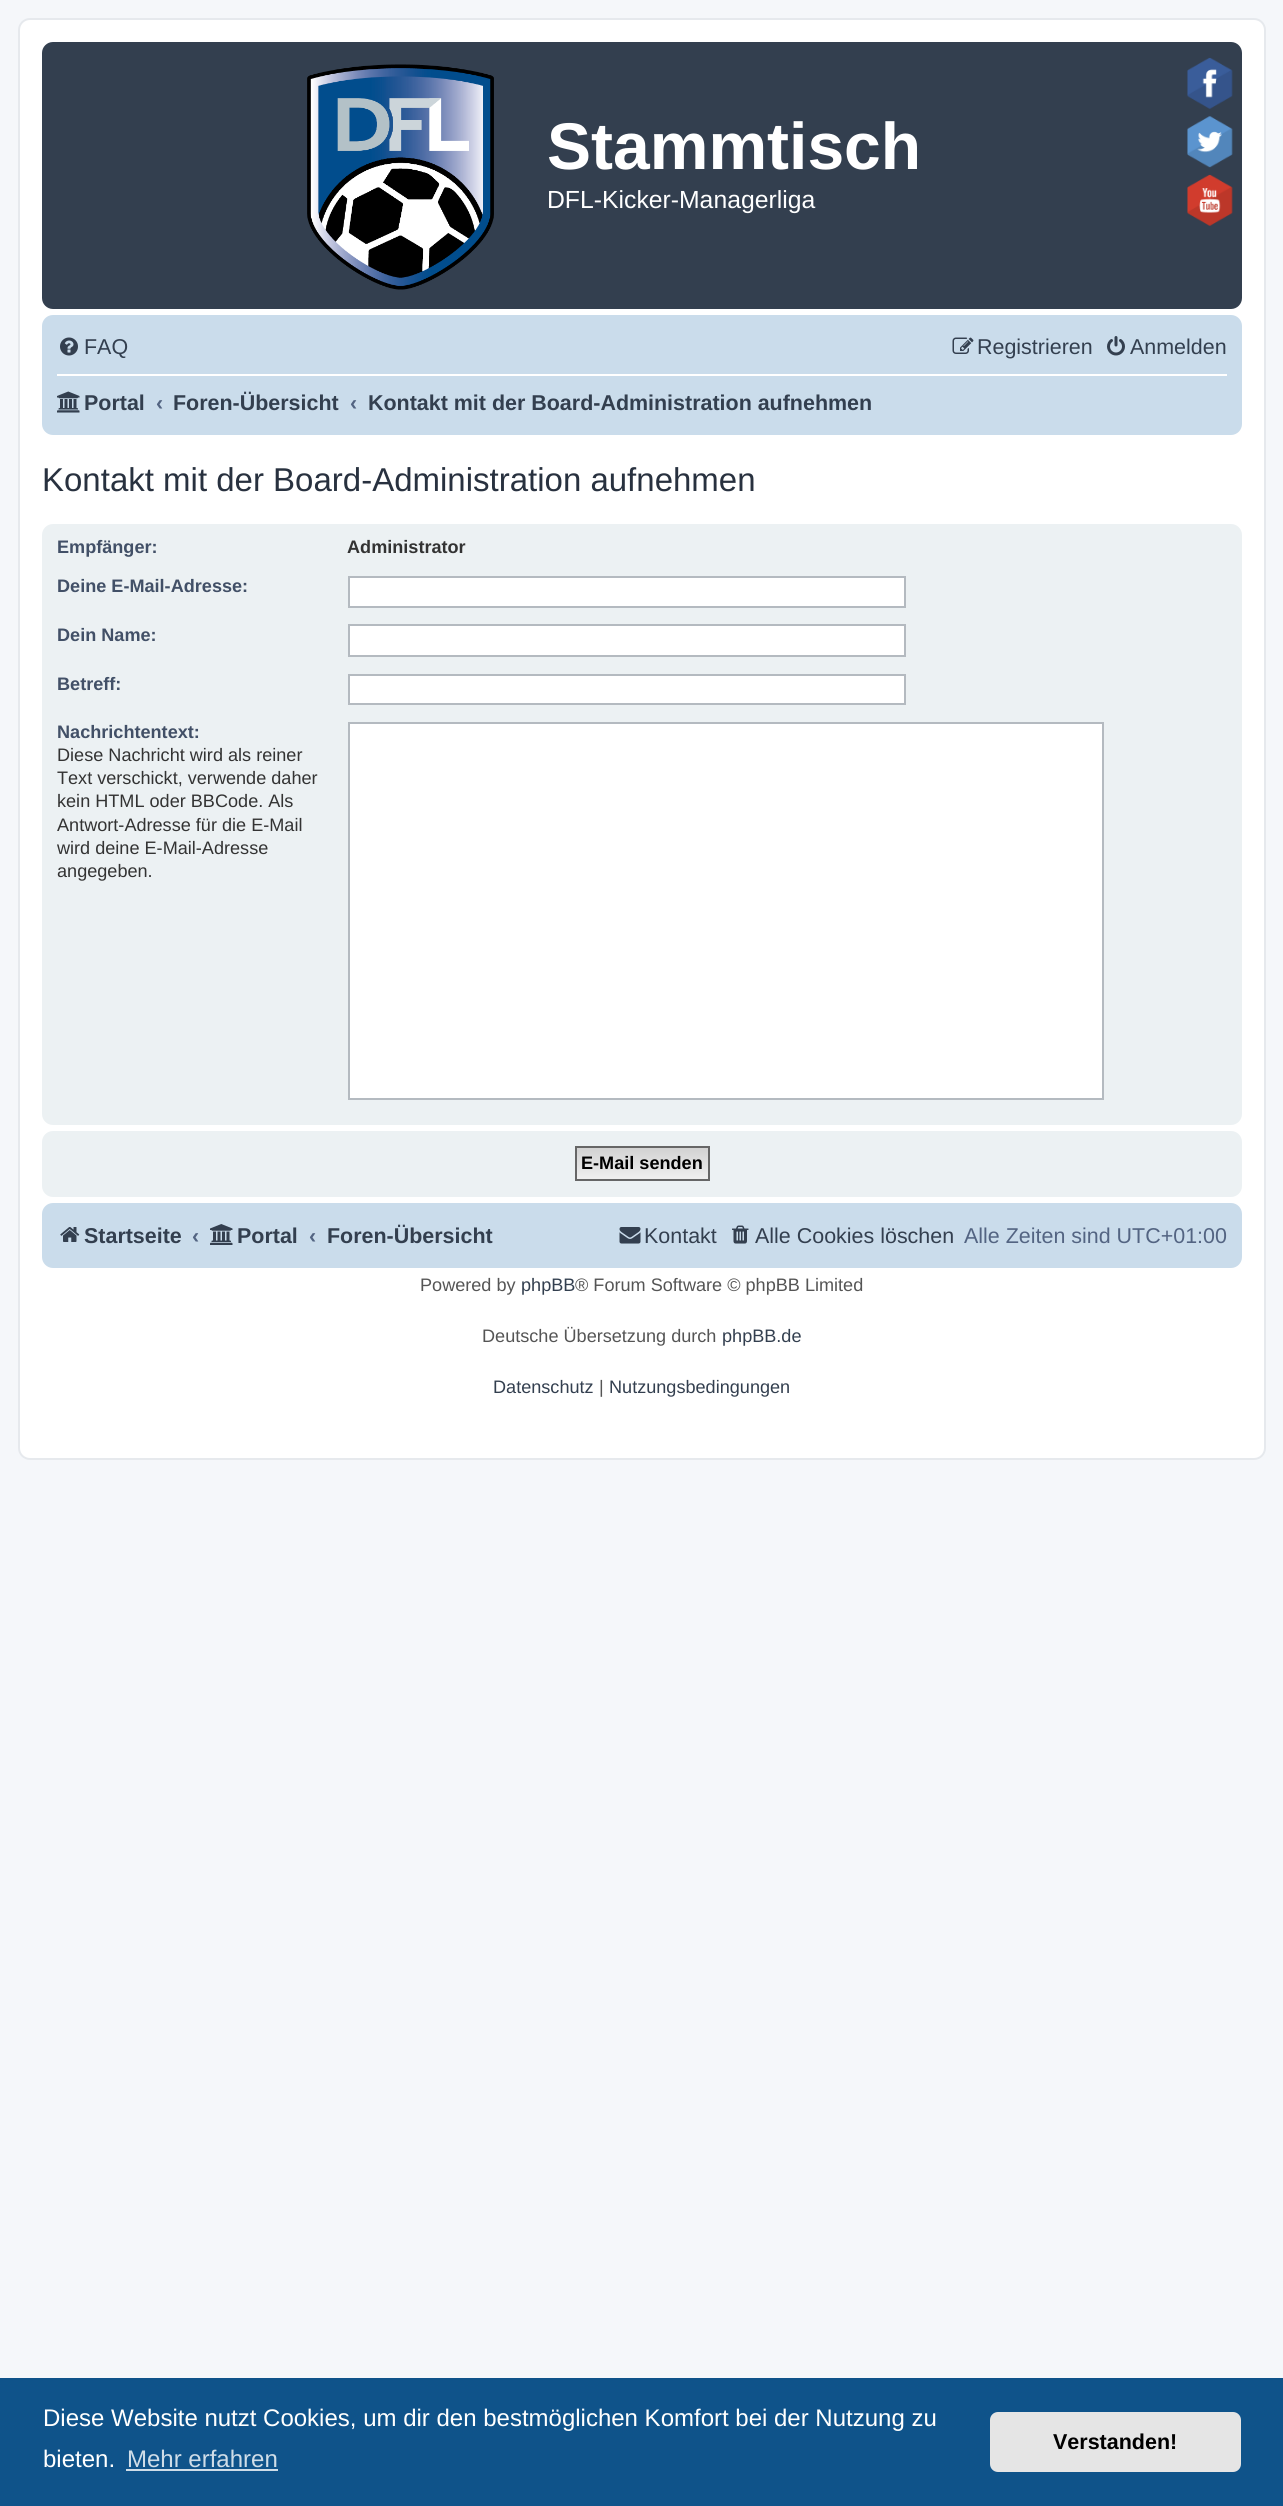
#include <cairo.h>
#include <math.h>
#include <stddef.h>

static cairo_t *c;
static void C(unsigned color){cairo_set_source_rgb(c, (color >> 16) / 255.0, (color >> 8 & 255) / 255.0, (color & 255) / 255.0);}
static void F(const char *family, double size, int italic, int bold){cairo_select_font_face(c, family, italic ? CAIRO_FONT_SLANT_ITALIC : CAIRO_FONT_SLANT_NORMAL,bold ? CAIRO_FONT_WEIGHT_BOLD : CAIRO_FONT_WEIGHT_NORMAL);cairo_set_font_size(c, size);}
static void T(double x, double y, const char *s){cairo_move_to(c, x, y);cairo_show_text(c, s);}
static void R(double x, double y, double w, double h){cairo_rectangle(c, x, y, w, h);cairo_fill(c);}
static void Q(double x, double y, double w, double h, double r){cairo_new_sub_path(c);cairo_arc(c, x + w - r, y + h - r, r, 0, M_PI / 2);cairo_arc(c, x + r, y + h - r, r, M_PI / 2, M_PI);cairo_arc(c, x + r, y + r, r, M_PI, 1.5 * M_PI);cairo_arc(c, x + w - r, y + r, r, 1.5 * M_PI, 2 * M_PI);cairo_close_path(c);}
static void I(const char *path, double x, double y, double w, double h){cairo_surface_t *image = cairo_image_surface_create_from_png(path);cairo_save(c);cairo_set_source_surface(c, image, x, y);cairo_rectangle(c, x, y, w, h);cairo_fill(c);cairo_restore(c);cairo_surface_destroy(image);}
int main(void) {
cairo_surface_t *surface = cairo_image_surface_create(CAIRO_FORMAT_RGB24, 1283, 2506);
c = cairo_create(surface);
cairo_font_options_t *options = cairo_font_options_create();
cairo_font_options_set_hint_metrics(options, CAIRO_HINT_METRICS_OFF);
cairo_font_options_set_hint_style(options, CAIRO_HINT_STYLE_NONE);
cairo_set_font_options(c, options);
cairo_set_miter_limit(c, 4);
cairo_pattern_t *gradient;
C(0xf5f7fa);
cairo_paint(c);
C(0xffffff);
Q(19,19,1246,1440,11);
cairo_fill_preserve(c);
C(0xe6e9ed);
cairo_stroke(c);
C(0x333f4f);
Q(42,42,1200,267,11);
cairo_fill(c);
I("1.png",307,64,187,226);
F("Liberation Sans",66,0,1);
C(0xffffff);
T(547,169,"Stammtisch");
F("Liberation Sans",24.75,0,0);
T(547,208,"DFL-Kicker-Managerliga");
I("2.png",1187,57,46,52);
I("3.png",1187,116,46,52);
I("4.png",1187,174,46,52);
C(0xcadceb);
Q(42,315,1200,120,11);
cairo_fill(c);
I("5.png",60,337,18,19);
F("Liberation Sans",21.45,0,0);
C(0x333f4f);
T(84,354,"FAQ");
I("6.png",952,337,22,17);
T(977,354,"Registrieren");
I("7.png",1107,336,18,20);
T(1130,354,"Anmelden");
C(0xffffff);
R(57,374,1170,2);
I("8.png",57,391,23,22);
F("Liberation Sans",21.45,0,1);
C(0x333f4f);
T(84,410,"Portal");
C(0x536482);
T(156,410,"‹");
C(0x333f4f);
T(173,410,"Foren-Übersicht");
C(0x536482);
T(350,410,"‹");
C(0x333f4f);
T(368,410,"Kontakt mit der Board-Administration aufnehmen");
F("Liberation Sans",33,0,0);
C(0x28313f);
T(42,491,"Kontakt mit der Board-Administration aufnehmen");
C(0xecf1f3);
Q(42,524,1200,601,11);
cairo_fill(c);
F("Liberation Sans",18.1,0,1);
C(0x425067);
T(57,553,"Empfänger:");
C(0x333333);
T(347,553,"Administrator");
C(0x425067);
T(57,592,"Deine E-Mail-Adresse:");
C(0xffffff);
cairo_rectangle(c,349,577,556,30);
cairo_fill_preserve(c);
C(0xb4bac0);
cairo_stroke(c);
C(0x425067);
T(57,641,"Dein Name:");
C(0xffffff);
cairo_rectangle(c,349,625,556,31);
cairo_fill_preserve(c);
C(0xb4bac0);
cairo_stroke(c);
C(0x425067);
T(57,690,"Betreff:");
C(0xffffff);
cairo_rectangle(c,349,675,556,29);
cairo_fill_preserve(c);
C(0xb4bac0);
cairo_stroke(c);
C(0x425067);
T(57,738,"Nachrichtentext:");
F("Liberation Sans",18.1,0,0);
C(0x333333);
T(57,761,"Diese Nachricht wird als reiner");
T(57,784,"Text verschickt, verwende daher");
T(57,807,"kein HTML oder BBCode. Als");
T(57,831,"Antwort-Adresse für die E-Mail");
T(57,854,"wird deine E-Mail-Adresse");
T(57,877,"angegeben.");
C(0xffffff);
cairo_rectangle(c,349,723,754,376);
cairo_fill_preserve(c);
C(0xb4bac0);
cairo_stroke(c);
C(0xecf1f3);
Q(42,1131,1200,66,11);
cairo_fill(c);
gradient = cairo_pattern_create_linear(642,1148,642,1179);
cairo_pattern_add_color_stop_rgba(gradient,0,0.824,0.824,0.824,1);
cairo_pattern_add_color_stop_rgba(gradient,1,0.937,0.937,0.937,1);
cairo_set_source(c,gradient);
cairo_pattern_destroy(gradient);
R(577,1148,131,31);
cairo_rectangle(c,576,1147,133,33);
C(0x666666);
cairo_stroke(c);
F("Liberation Sans",18.1,0,1);
C(0x000000);
T(581,1169,"E-Mail senden");
C(0xcadceb);
Q(42,1203,1200,65,11);
cairo_fill(c);
I("9.png",60,1227,20,15);
F("Liberation Sans",21.45,0,1);
C(0x333f4f);
T(84,1243,"Startseite");
C(0x536482);
T(192,1243,"‹");
I("10.png",210,1224,23,21);
C(0x333f4f);
T(237,1243,"Portal");
C(0x536482);
T(309,1243,"‹");
C(0x333f4f);
T(327,1243,"Foren-Übersicht");
I("11.png",619,1227,22,17);
F("Liberation Sans",21.45,0,0);
T(644,1243,"Kontakt");
I("12.png",732,1225,17,19);
T(755,1243,"Alle Cookies löschen");
C(0x536482);
T(964,1243,"Alle Zeiten sind UTC+01:00");
F("Liberation Sans",18.1,0,0);
C(0x555555);
T(420,1291,"Powered by");
C(0x333f4f);
T(521,1291,"phpBB");
C(0x555555);
T(575,1291,"® Forum Software © phpBB Limited");
T(482,1342,"Deutsche Übersetzung durch");
C(0x333f4f);
T(722,1342,"phpBB.de");
T(493,1393,"Datenschutz");
C(0x555555);
T(599,1393,"|");
C(0x333f4f);
T(609,1393,"Nutzungsbedingungen");
C(0x0f538a);
R(0,2378,1283,128);
F("Liberation Sans",24,0,0);
C(0xffffff);
T(43,2426,"Diese Website nutzt Cookies, um dir den bestmöglichen Komfort bei der Nutzung zu");
T(43,2467,"bieten.");
C(0xcfdde8);
T(127,2467,"Mehr erfahren");
R(126,2469,152,2);
C(0xe5e5e5);
Q(990,2412,251,60,8);
cairo_fill(c);
F("Liberation Sans",21.5,0,1);
C(0x000000);
T(1053,2449,"Verstanden!");
cairo_surface_write_to_png(surface, "o.png");
cairo_font_options_destroy(options);
cairo_destroy(c);
cairo_surface_destroy(surface);
return 0;
}
